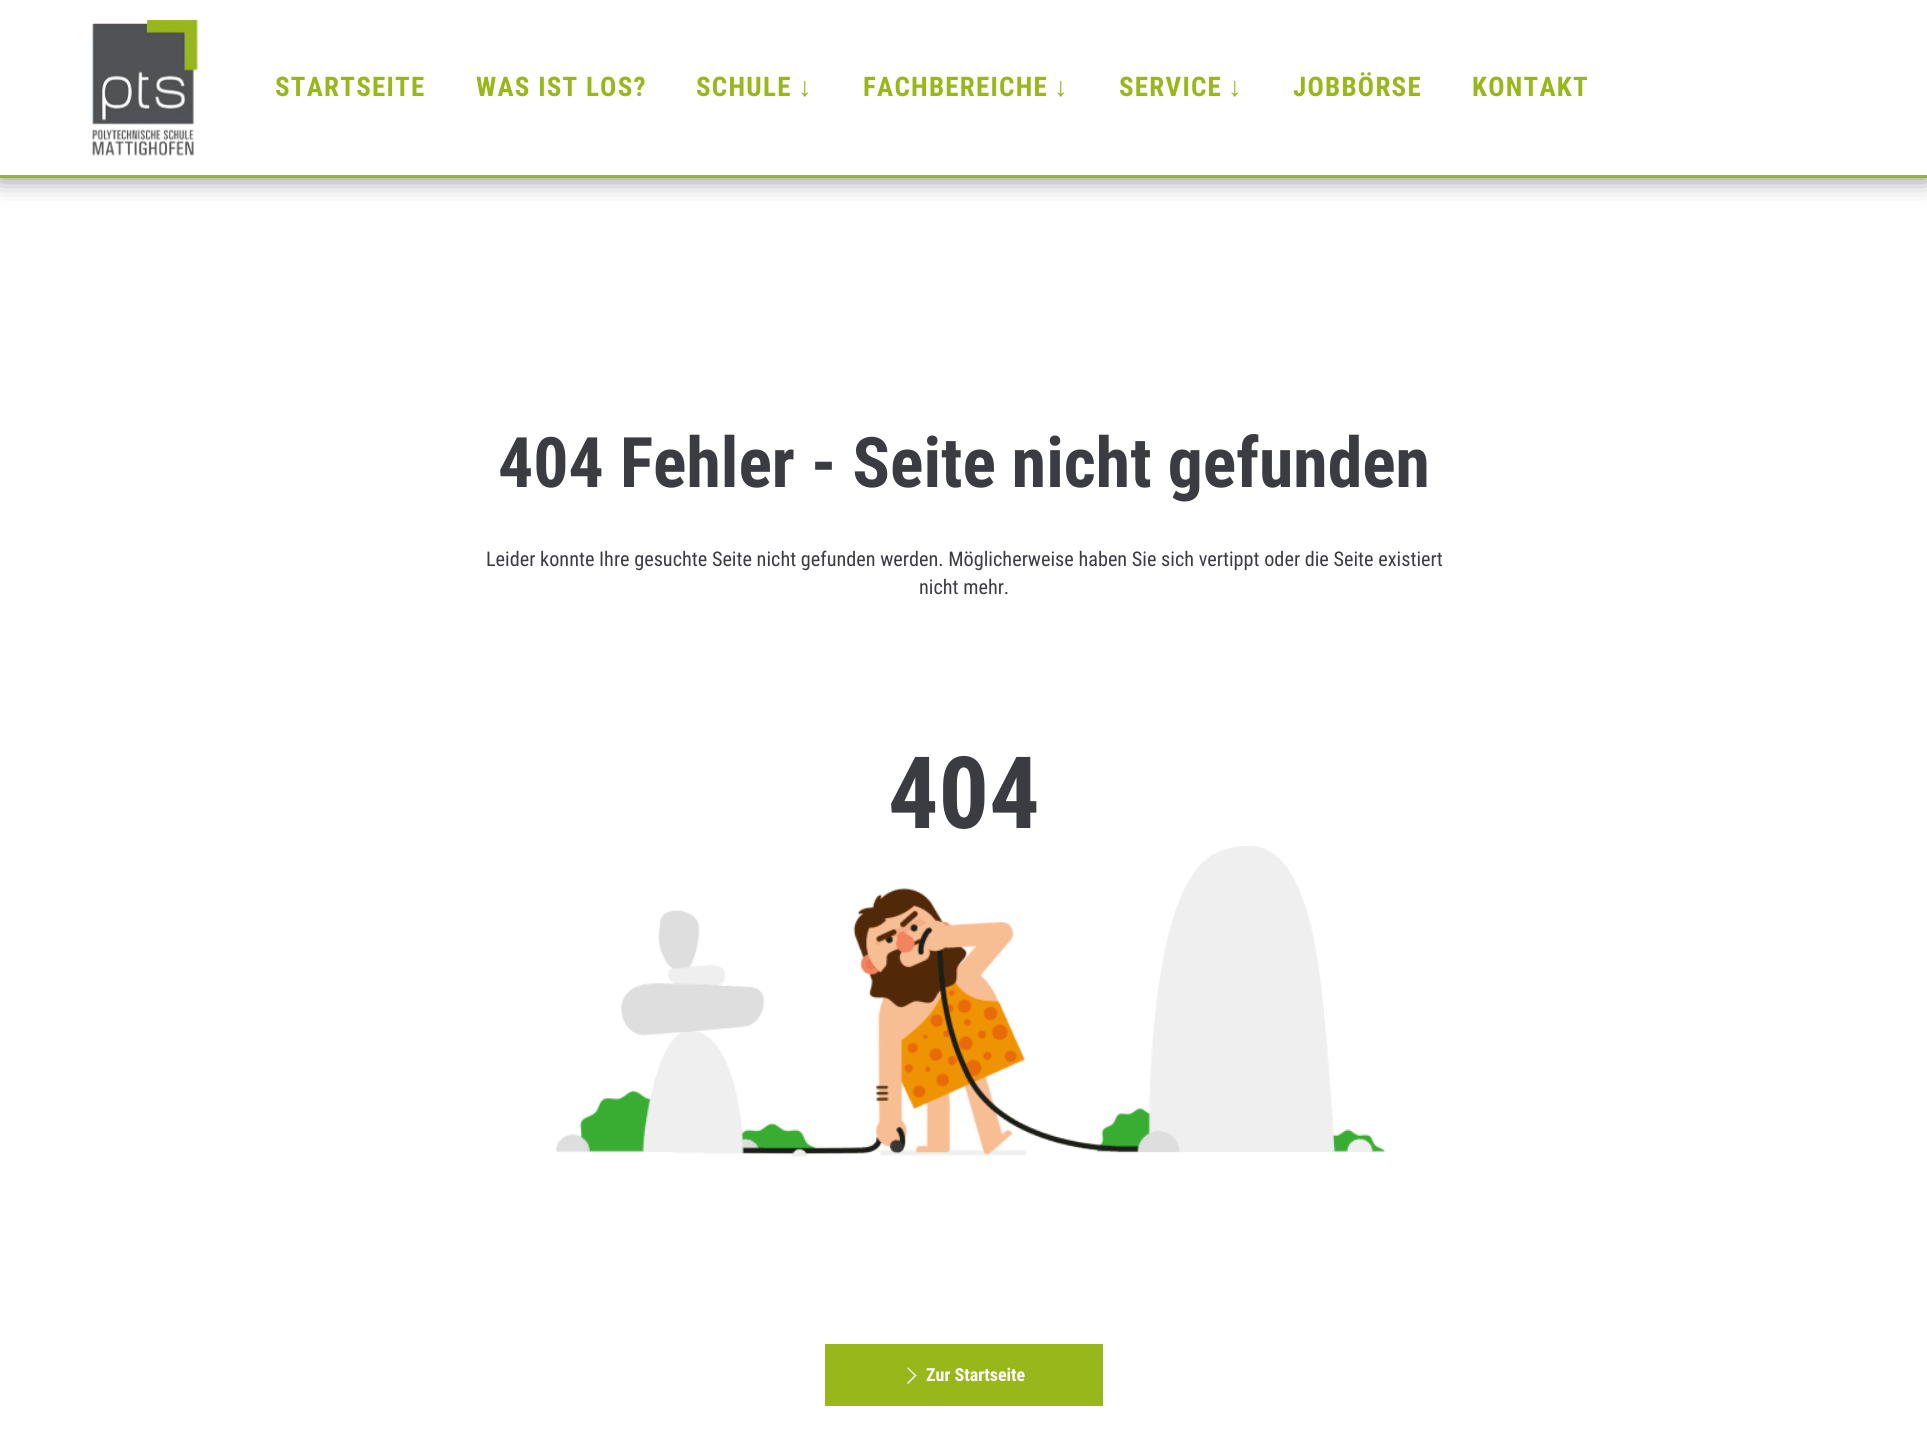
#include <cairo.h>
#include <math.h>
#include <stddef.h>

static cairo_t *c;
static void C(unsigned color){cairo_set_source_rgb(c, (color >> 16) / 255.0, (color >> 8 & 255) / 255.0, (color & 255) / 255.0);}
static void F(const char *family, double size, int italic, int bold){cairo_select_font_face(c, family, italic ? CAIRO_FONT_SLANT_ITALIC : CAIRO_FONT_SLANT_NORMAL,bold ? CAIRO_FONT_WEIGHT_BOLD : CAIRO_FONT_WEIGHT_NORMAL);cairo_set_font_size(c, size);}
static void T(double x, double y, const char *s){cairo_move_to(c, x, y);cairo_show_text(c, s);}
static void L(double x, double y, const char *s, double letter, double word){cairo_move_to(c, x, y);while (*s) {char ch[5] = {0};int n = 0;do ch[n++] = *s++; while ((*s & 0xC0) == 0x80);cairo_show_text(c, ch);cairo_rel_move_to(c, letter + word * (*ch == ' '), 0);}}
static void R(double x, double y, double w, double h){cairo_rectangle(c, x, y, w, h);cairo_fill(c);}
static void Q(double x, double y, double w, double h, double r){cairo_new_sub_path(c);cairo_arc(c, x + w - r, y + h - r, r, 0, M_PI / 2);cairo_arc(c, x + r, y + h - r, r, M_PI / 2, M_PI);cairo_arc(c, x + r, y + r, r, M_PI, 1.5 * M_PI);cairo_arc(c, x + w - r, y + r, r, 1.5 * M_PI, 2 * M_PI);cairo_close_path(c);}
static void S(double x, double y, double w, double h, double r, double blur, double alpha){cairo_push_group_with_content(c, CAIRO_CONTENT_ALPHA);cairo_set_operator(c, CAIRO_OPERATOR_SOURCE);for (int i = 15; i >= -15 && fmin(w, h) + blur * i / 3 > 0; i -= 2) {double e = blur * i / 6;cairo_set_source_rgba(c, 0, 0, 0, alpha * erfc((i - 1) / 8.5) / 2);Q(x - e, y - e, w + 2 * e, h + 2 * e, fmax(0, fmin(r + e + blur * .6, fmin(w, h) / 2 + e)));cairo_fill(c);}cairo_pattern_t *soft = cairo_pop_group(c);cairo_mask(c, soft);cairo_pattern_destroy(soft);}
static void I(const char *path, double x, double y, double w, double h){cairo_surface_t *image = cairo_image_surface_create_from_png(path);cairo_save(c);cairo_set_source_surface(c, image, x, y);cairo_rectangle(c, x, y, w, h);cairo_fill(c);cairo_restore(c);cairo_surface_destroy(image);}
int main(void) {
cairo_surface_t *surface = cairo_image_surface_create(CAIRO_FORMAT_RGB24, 1927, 1454);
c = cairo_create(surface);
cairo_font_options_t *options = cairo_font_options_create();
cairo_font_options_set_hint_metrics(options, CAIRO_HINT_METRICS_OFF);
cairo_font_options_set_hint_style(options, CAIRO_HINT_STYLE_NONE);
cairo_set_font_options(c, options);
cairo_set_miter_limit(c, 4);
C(0xffffff);
cairo_paint(c);
C(0x000000);
S(0,0,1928,178,0,12.5,.5);
C(0xffffff);
R(0,0,1927,175);
C(0x98b71b);
R(0,175,1927,3);
I("1.png",92,19,106,137);
F("Roboto Condensed",27,0,1);
L(275,96,"STARTSEITE",1.25,0);
L(476,96,"WAS IST LOS?",1.25,0);
L(696,96,"SCHULE",1.25,0);
F("Liberation Sans",27,0,1);
L(798,96,"↓",1.25,0);
F("Roboto Condensed",27,0,1);
L(863,96,"FACHBEREICHE",1.25,0);
F("Liberation Sans",27,0,1);
L(1054,96,"↓",1.25,0);
F("Roboto Condensed",27,0,1);
L(1119,96,"SERVICE",1.25,0);
F("Liberation Sans",27,0,1);
L(1228,96,"↓",1.25,0);
F("Roboto Condensed",27,0,1);
L(1293,96,"JOBBÖRSE",1.25,0);
L(1472,96,"KONTAKT",1.25,0);
F("Roboto Condensed",69.75,0,1);
C(0x3b3c42);
T(498,487,"404 Fehler - Seite nicht gefunden");
F("Roboto Condensed",20.25,0,0);
T(486,566,"Leider konnte Ihre gesuchte Seite nicht gefunden werden. Möglicherweise haben Sie sich vertippt oder die Seite existiert");
T(919,594,"nicht mehr.");
I("2.png",556,846,830,311);
F("Roboto Condensed",100,0,1);
T(888,828,"404");
C(0x98b71b);
R(825,1344,278,62);
C(0xffffff);
cairo_new_path(c);
cairo_move_to(c,916.5,1375.5);
cairo_line_to(c,908,1384);
cairo_line_to(c,907,1383);
cairo_line_to(c,915.5,1374.5);
cairo_close_path(c);
cairo_fill(c);
cairo_new_path(c);
cairo_move_to(c,916.5,1375.5);
cairo_line_to(c,915.5,1376.5);
cairo_line_to(c,907,1368);
cairo_line_to(c,908,1367.5);
cairo_close_path(c);
cairo_fill(c);
F("Roboto Condensed",18,0,1);
T(926,1381,"Zur Startseite");
cairo_surface_write_to_png(surface, "o.png");
cairo_font_options_destroy(options);
cairo_destroy(c);
cairo_surface_destroy(surface);
return 0;
}
